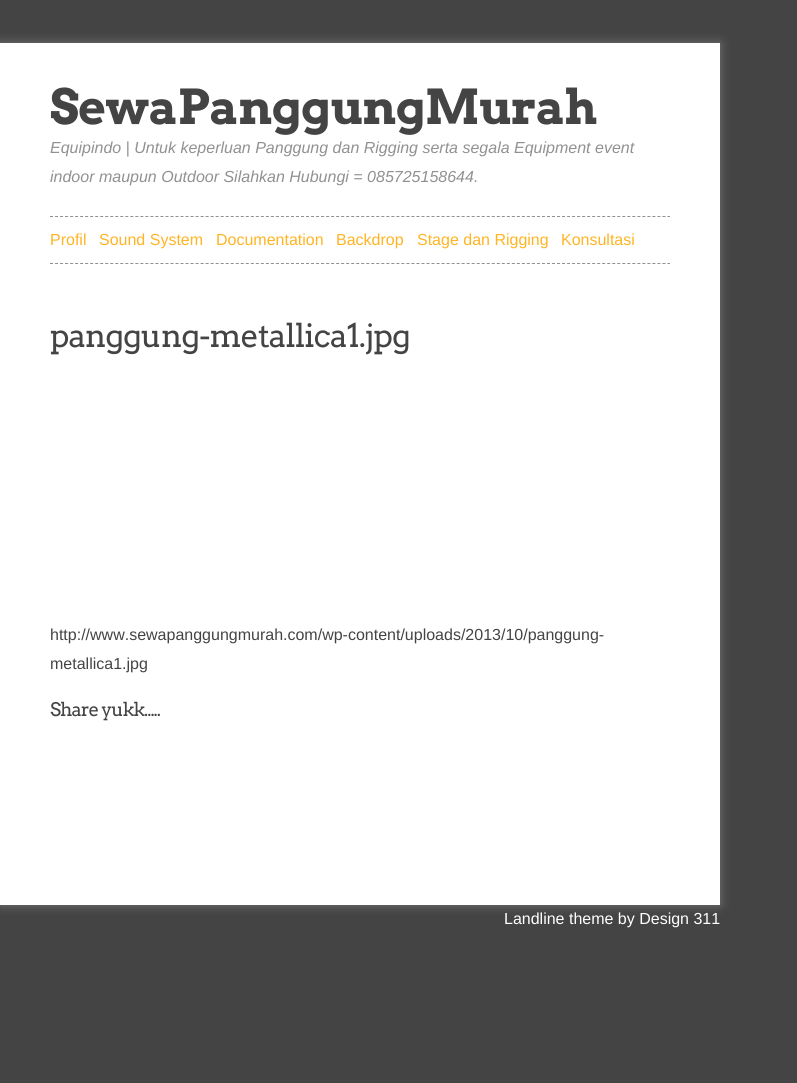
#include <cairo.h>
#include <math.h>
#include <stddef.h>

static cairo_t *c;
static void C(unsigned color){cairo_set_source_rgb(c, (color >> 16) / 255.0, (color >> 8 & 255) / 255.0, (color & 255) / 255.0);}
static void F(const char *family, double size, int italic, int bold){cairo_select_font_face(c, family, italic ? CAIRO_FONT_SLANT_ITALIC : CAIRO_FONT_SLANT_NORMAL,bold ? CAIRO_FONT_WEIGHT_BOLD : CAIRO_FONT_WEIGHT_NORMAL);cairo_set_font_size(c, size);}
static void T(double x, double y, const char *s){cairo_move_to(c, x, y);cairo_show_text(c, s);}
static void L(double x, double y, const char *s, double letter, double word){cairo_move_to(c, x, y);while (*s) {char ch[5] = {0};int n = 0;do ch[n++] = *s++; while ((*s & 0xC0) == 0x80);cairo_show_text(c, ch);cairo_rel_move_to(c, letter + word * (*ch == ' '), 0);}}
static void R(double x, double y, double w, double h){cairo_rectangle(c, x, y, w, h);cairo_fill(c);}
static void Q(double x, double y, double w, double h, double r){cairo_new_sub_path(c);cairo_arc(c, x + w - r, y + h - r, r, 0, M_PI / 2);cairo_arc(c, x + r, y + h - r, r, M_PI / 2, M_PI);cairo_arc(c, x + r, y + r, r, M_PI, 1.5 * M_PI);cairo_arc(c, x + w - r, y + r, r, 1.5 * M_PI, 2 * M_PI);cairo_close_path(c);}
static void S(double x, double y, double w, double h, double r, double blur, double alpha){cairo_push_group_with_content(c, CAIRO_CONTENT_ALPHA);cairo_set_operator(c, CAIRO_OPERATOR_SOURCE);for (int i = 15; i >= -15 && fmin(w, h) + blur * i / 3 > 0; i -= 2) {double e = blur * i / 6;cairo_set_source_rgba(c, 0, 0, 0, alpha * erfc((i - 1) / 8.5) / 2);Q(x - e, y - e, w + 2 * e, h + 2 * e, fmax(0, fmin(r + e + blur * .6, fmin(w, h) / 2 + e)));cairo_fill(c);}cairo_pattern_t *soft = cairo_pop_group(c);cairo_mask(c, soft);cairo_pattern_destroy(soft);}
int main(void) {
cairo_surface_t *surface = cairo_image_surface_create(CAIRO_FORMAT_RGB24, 797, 1083);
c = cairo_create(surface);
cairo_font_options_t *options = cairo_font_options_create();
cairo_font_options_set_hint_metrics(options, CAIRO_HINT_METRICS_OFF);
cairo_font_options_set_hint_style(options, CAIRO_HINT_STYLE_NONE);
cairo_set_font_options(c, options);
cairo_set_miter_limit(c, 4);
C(0x444444);
cairo_paint(c);
C(0x777777);
S(0,43,720,862,0,5,1);
C(0xffffff);
R(0,43,720,862);
F("Arvo",48,0,1);
C(0x444444);
L(50,124,"SewaPanggungMurah",-1,0);
F("Liberation Sans",16,1,0);
C(0x919191);
T(50,153,"Equipindo | Untuk keperluan Panggung dan Rigging serta segala Equipment event");
T(50,182,"indoor maupun Outdoor Silahkan Hubungi = 085725158644.");
cairo_new_path(c);
cairo_move_to(c,50,216.5);
cairo_line_to(c,670,216.5);
cairo_set_line_width(c,1);
cairo_set_dash(c,(double[]){3,2.02},2,0);
cairo_stroke(c);
cairo_new_path(c);
cairo_move_to(c,50,263.5);
cairo_line_to(c,670,263.5);
cairo_stroke(c);
F("Liberation Sans",16,0,0);
C(0xffb424);
T(50,245,"Profil");
T(99,245,"Sound System");
T(216,245,"Documentation");
T(336,245,"Backdrop");
T(417,245,"Stage dan Rigging");
T(561,245,"Konsultasi");
F("Arvo",32,0,0);
C(0x444444);
L(50,347,"panggung-metallica1.jpg",-1,0);
F("Liberation Sans",16,0,0);
T(50,640,"http://www.sewapanggungmurah.com/wp-content/uploads/2013/10/panggung-");
T(50,669,"metallica1.jpg");
F("Arvo",18.75,0,0);
L(50,716,"Share yukk.....",-1,0);
F("Liberation Sans",16,0,0);
C(0xffffff);
T(504,924,"Landline theme by Design 311");
cairo_surface_write_to_png(surface, "o.png");
cairo_font_options_destroy(options);
cairo_destroy(c);
cairo_surface_destroy(surface);
return 0;
}
